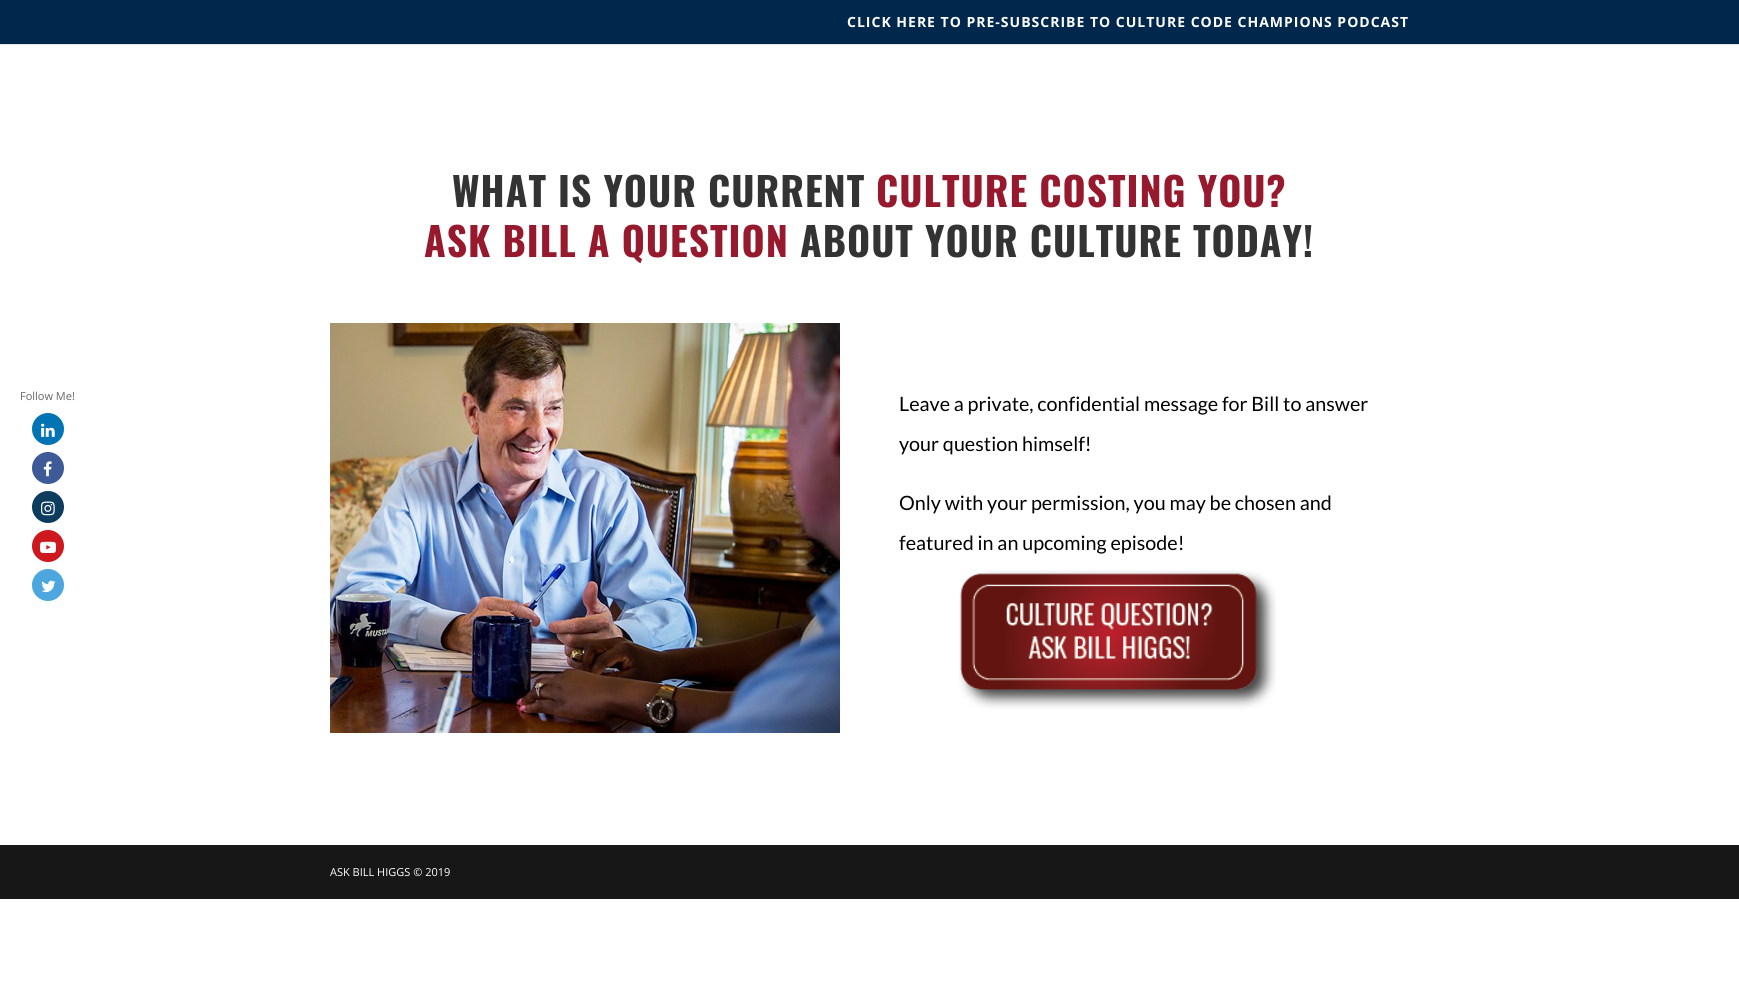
#include <cairo.h>
#include <math.h>
#include <stddef.h>

static cairo_t *c;
static void C(unsigned color){cairo_set_source_rgb(c, (color >> 16) / 255.0, (color >> 8 & 255) / 255.0, (color & 255) / 255.0);}
static void F(const char *family, double size, int italic, int bold){cairo_select_font_face(c, family, italic ? CAIRO_FONT_SLANT_ITALIC : CAIRO_FONT_SLANT_NORMAL,bold ? CAIRO_FONT_WEIGHT_BOLD : CAIRO_FONT_WEIGHT_NORMAL);cairo_set_font_size(c, size);}
static void T(double x, double y, const char *s){cairo_move_to(c, x, y);cairo_show_text(c, s);}
static void L(double x, double y, const char *s, double letter, double word){cairo_move_to(c, x, y);while (*s) {char ch[5] = {0};int n = 0;do ch[n++] = *s++; while ((*s & 0xC0) == 0x80);cairo_show_text(c, ch);cairo_rel_move_to(c, letter + word * (*ch == ' '), 0);}}
static void R(double x, double y, double w, double h){cairo_rectangle(c, x, y, w, h);cairo_fill(c);}
static void I(const char *path, double x, double y, double w, double h){cairo_surface_t *image = cairo_image_surface_create_from_png(path);cairo_save(c);cairo_set_source_surface(c, image, x, y);cairo_rectangle(c, x, y, w, h);cairo_fill(c);cairo_restore(c);cairo_surface_destroy(image);}
int main(void) {
cairo_surface_t *surface = cairo_image_surface_create(CAIRO_FORMAT_RGB24, 1739, 989);
c = cairo_create(surface);
cairo_font_options_t *options = cairo_font_options_create();
cairo_font_options_set_hint_metrics(options, CAIRO_HINT_METRICS_OFF);
cairo_font_options_set_hint_style(options, CAIRO_HINT_STYLE_NONE);
cairo_set_font_options(c, options);
cairo_set_miter_limit(c, 4);
C(0xffffff);
cairo_paint(c);
F("Open Sans",11,0,0);
C(0x666666);
T(20,400,"Follow Me!");
C(0x0274b3);
cairo_new_path(c);
cairo_arc(c,48,429,16,0,2 * M_PI);
cairo_fill(c);
I("1.png",41,423,14,14);
C(0x3e5b98);
cairo_arc(c,48,468,16,0,2 * M_PI);
cairo_fill(c);
I("2.png",43,461,9,16);
C(0x0d3c5f);
cairo_arc(c,48,507,16,0,2 * M_PI);
cairo_fill(c);
I("3.png",41,501,14,15);
C(0xcc181e);
cairo_arc(c,48,546,16,0,2 * M_PI);
cairo_fill(c);
I("4.png",40,541,16,12);
C(0x4da7de);
cairo_arc(c,48,585,16,0,2 * M_PI);
cairo_fill(c);
I("5.png",41,580,15,13);
C(0xe6e6e6);
R(0,44,1739,1);
C(0x00274c);
R(0,0,1739,44);
F("Open Sans",14,0,1);
C(0xffffff);
L(847,27,"CLICK HERE TO PRE-SUBSCRIBE TO CULTURE CODE CHAMPIONS PODCAST",1,0);
F("Oswald",39.5,0,1);
C(0x333333);
L(452,207,"WHAT IS YOUR CURRENT",1,0);
C(0x97192e);
L(876,207,"CULTURE COSTING YOU?",1,0);
L(424,257,"ASK BILL A QUESTION",1,0);
C(0x333333);
L(800,257,"ABOUT YOUR CULTURE TODAY!",1,0);
I("6.png",330,323,510,410);
F("Lato",19.75,0,0);
C(0x000000);
T(899,411,"Leave a private, confidential message for Bill to answer");
T(899,451,"your question himself!");
T(899,510,"Only with your permission, you may be chosen and");
T(899,550,"featured in an upcoming episode!");
I("7.png",959,570,317,139);
C(0x171717);
R(0,845,1739,54);
F("Open Sans",11,0,0);
C(0xffffff);
T(330,876,"ASK BILL HIGGS © 2019");
cairo_surface_write_to_png(surface, "o.png");
cairo_font_options_destroy(options);
cairo_destroy(c);
cairo_surface_destroy(surface);
return 0;
}
